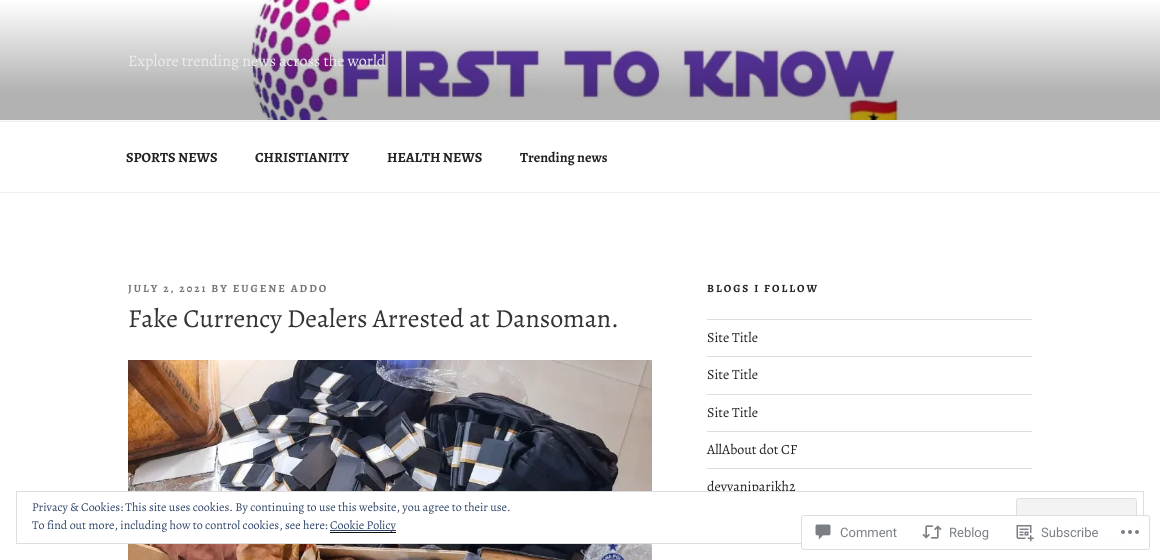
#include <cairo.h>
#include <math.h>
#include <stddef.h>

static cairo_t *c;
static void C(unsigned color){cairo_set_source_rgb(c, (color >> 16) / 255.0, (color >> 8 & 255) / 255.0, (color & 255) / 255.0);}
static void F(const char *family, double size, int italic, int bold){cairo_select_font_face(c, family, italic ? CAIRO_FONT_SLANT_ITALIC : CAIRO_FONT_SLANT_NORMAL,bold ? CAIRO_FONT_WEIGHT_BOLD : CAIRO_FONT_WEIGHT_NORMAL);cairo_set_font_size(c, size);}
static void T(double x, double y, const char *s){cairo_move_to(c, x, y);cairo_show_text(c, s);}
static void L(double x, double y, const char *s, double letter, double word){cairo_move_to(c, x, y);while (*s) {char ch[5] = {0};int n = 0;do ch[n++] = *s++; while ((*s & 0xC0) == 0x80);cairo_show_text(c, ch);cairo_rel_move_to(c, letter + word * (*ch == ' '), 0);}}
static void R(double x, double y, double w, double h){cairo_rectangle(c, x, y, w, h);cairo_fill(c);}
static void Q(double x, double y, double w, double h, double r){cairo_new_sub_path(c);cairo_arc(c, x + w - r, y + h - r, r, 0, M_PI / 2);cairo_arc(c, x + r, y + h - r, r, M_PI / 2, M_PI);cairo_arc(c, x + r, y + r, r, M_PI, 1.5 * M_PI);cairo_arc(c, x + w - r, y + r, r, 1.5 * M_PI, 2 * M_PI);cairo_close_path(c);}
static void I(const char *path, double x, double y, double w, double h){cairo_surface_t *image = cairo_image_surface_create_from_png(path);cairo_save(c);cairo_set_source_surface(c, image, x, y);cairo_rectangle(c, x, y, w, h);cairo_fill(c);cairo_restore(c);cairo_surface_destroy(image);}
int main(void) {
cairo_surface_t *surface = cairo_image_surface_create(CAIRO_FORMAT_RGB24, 1160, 560);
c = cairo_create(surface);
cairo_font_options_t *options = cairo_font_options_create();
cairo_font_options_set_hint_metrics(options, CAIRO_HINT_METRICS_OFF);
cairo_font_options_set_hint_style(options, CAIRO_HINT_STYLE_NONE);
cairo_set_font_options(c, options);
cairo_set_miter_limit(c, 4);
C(0xffffff);
cairo_paint(c);
C(0xfafafa);
R(0,120,1160,1);
I("1.png",0,0,1160,120);
F("Alegreya",16,0,0);
C(0xeeebf0);
T(128,66,"Explore trending news across the world");
C(0xeeeeee);
R(0,121,1160,1);
R(0,192,1160,1);
F("Alegreya",14,0,1);
C(0x222222);
T(126,162,"SPORTS NEWS");
T(255,162,"CHRISTIANITY");
T(387,162,"HEALTH NEWS");
T(520,162,"Trending news");
F("Alegreya",11,0,1);
C(0x767676);
L(128,292,"JULY 2, 2021 BY EUGENE ADDO",2,0);
F("Alegreya",26,0,0);
C(0x333333);
T(128,327,"Fake Currency Dealers Arrested at Dansoman.");
I("2.png",128,360,524,200);
F("Alegreya",11,0,1);
C(0x222222);
L(707,292,"BLOGS I FOLLOW",2,0);
C(0xdddddd);
R(707,319,325,1);
R(707,356,325,1);
F("Alegreya",14,0,0);
C(0x222222);
T(707,342,"Site Title");
C(0xdddddd);
R(707,394,325,1);
C(0x222222);
T(707,379,"Site Title");
C(0xdddddd);
R(707,431,325,1);
C(0x222222);
T(707,417,"Site Title");
C(0xdddddd);
R(707,468,325,1);
C(0x222222);
T(707,454,"AllAbout dot CF");
T(707,491,"devyaniparikh2");
C(0xffffff);
R(128,492,627,51);
cairo_rectangle(c,16.5,491.5,1127,52);
C(0xdedede);
cairo_set_line_width(c,1);
cairo_stroke(c);
F("Alegreya",12,0,0);
C(0x2e4467);
T(32,511,"Privacy & Cookies: This site uses cookies. By continuing to use this website, you agree to their use.");
C(0xf3f3f3);
Q(1016.5,498.5,120,38,2.5);
cairo_fill_preserve(c);
C(0xdedede);
cairo_stroke(c);
C(0x2e4467);
T(32,529,"To find out more, including how to control cookies, see here:");
R(330,530,66,1);
T(330,529,"Cookie Policy");
C(0x0f0f0f);
R(330,532,66,1);
cairo_set_source_rgba(c,1,1,1,0.98);
Q(801,515,349,35,3);
cairo_fill(c);
Q(801.5,515.5,348,34,2.5);
cairo_set_source_rgba(c,0.863,0.863,0.871,0.98);
cairo_stroke(c);
I("3.png",815,524,16,16);
F("Roboto",13,0,0);
C(0x7b7f85);
T(840,537,"Comment");
I("4.png",922,525,20,14);
T(949,537,"Reblog");
I("5.png",1016,525,18,17);
T(1041,537,"Subscribe");
I("6.png",1121,530,18,4);
cairo_surface_write_to_png(surface, "o.png");
cairo_font_options_destroy(options);
cairo_destroy(c);
cairo_surface_destroy(surface);
return 0;
}
